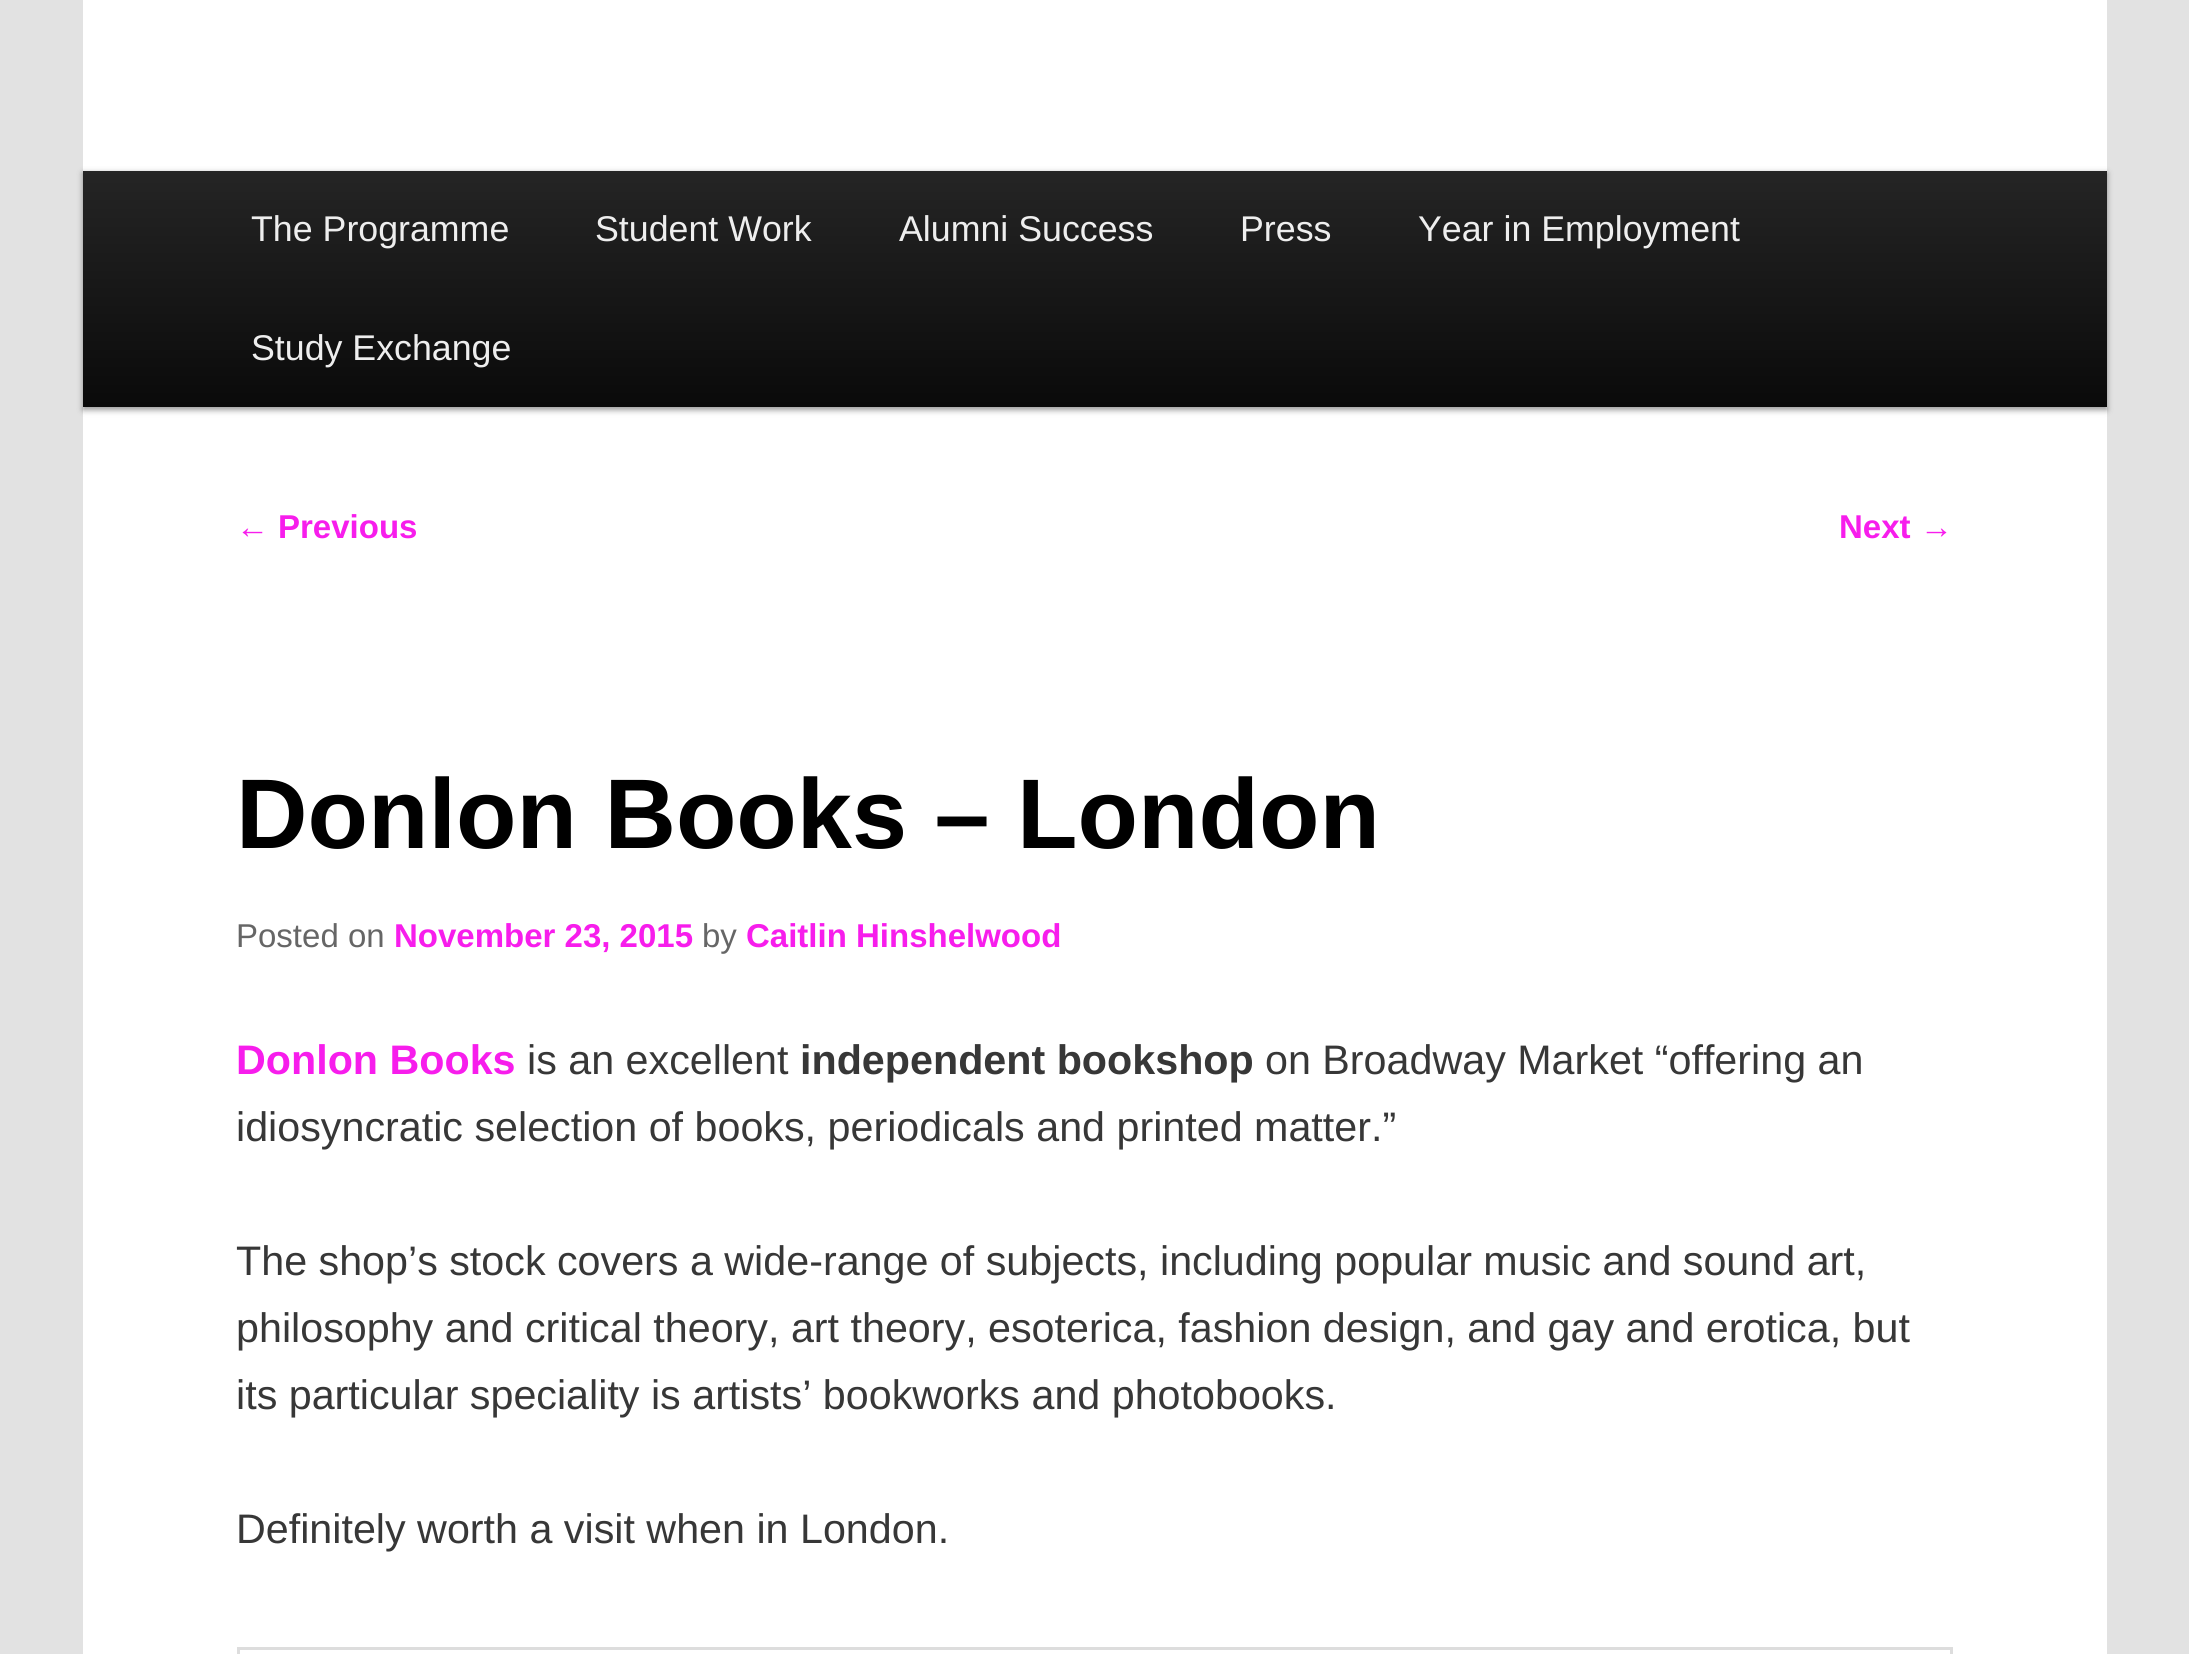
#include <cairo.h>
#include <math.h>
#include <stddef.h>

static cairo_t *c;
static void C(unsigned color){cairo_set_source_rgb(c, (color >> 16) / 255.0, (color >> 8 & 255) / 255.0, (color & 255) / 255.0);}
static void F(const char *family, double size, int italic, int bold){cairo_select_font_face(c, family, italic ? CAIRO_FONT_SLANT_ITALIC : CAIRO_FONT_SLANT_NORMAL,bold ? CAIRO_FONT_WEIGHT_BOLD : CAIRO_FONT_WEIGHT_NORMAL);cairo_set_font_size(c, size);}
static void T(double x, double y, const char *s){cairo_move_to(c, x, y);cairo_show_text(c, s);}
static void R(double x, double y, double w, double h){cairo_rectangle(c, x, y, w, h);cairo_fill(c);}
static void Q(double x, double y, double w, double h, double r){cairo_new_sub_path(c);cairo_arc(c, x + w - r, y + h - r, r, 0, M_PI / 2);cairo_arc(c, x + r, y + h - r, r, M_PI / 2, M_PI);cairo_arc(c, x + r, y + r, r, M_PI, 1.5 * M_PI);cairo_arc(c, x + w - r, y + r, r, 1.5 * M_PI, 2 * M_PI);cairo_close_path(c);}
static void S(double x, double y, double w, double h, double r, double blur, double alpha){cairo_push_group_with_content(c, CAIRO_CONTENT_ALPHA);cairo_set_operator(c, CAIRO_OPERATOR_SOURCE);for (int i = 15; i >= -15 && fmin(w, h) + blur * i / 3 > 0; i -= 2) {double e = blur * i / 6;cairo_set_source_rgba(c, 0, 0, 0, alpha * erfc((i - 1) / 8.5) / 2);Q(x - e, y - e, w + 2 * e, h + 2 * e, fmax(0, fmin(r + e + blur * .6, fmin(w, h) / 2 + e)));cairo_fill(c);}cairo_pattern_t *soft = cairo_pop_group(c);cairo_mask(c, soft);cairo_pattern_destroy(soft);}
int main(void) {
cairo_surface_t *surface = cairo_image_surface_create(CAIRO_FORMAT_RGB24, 2189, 1654);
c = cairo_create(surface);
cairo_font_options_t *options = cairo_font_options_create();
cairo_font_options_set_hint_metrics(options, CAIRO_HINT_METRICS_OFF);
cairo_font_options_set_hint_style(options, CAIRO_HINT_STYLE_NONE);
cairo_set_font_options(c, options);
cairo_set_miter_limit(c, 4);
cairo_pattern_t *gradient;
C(0xe2e2e2);
cairo_paint(c);
C(0xffffff);
R(83,0,2024,1654);
C(0x000000);
S(83,173,2024,237,0,3,.4);
gradient = cairo_pattern_create_linear(1095,170,1095,407);
cairo_pattern_add_color_stop_rgba(gradient,0,0.145,0.145,0.145,1);
cairo_pattern_add_color_stop_rgba(gradient,1,0.039,0.039,0.039,1);
cairo_set_source(c,gradient);
cairo_pattern_destroy(gradient);
R(83,171,2024,236);
F("Liberation Sans",35.75,0,0);
C(0xeeeeee);
T(251,241,"The Programme");
T(595,241,"Student Work");
T(899,241,"Alumni Success");
T(1240,241,"Press");
T(1418,241,"Year in Employment");
T(251,360,"Study Exchange");
F("Liberation Sans",33,0,0);
C(0xf71dec);
T(236,538,"←");
F("Liberation Sans",33,0,1);
T(278,538,"Previous");
T(1839,538,"Next");
F("Liberation Sans",33,0,0);
T(1920,538,"→");
F("Liberation Sans",99,0,1);
C(0x000000);
T(236,848,"Donlon Books – London");
F("Liberation Sans",33,0,0);
C(0x666666);
T(236,947,"Posted on");
F("Liberation Sans",33,0,1);
C(0xf71dec);
T(394,947,"November 23, 2015");
F("Liberation Sans",33,0,0);
C(0x666666);
T(702,947,"by");
F("Liberation Sans",33,0,1);
C(0xf71dec);
T(746,947,"Caitlin Hinshelwood");
F("Liberation Sans",41.25,0,1);
T(236,1074,"Donlon Books");
F("Liberation Sans",41.25,0,0);
C(0x373737);
T(527,1074,"is an excellent");
F("Liberation Sans",41.25,0,1);
T(800,1074,"independent bookshop");
F("Liberation Sans",41.25,0,0);
T(1265,1074,"on Broadway Market “offering an");
T(236,1141,"idiosyncratic selection of books, periodicals and printed matter.”");
T(236,1275,"The shop’s stock covers a wide-range of subjects, including popular music and sound art,");
T(236,1342,"philosophy and critical theory, art theory, esoterica, fashion design, and gay and erotica, but");
T(236,1409,"its particular speciality is artists’ bookworks and photobooks.");
T(236,1543,"Definitely worth a visit when in London.");
cairo_rectangle(c,238.5,1648.5,1713,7);
C(0xdddddd);
cairo_set_line_width(c,3);
cairo_stroke(c);
cairo_surface_write_to_png(surface, "o.png");
cairo_font_options_destroy(options);
cairo_destroy(c);
cairo_surface_destroy(surface);
return 0;
}
